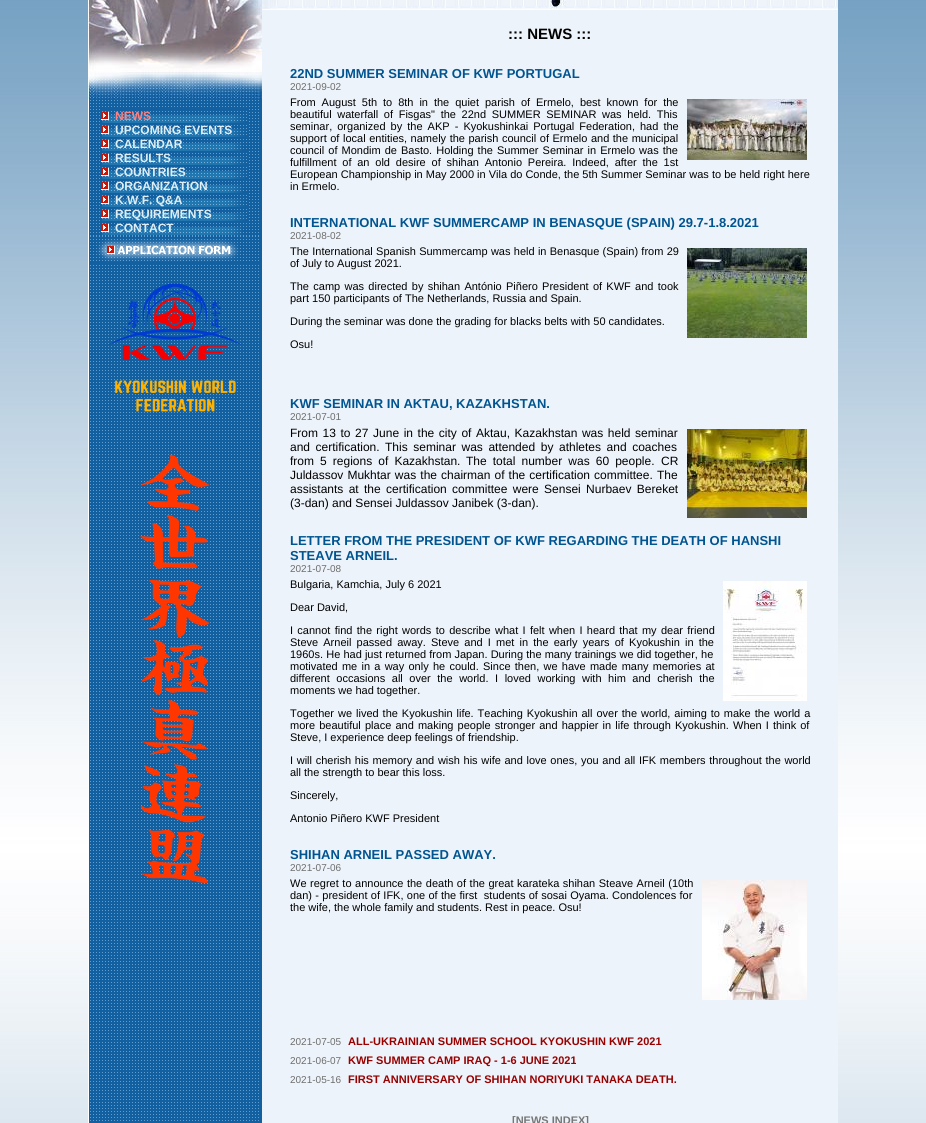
#include <cairo.h>
#include <math.h>
#include <stddef.h>

static cairo_t *c;
static void C(unsigned color){cairo_set_source_rgb(c, (color >> 16) / 255.0, (color >> 8 & 255) / 255.0, (color & 255) / 255.0);}
static void F(const char *family, double size, int italic, int bold){cairo_select_font_face(c, family, italic ? CAIRO_FONT_SLANT_ITALIC : CAIRO_FONT_SLANT_NORMAL,bold ? CAIRO_FONT_WEIGHT_BOLD : CAIRO_FONT_WEIGHT_NORMAL);cairo_set_font_size(c, size);}
static void T(double x, double y, const char *s){cairo_move_to(c, x, y);cairo_show_text(c, s);}
static void L(double x, double y, const char *s, double letter, double word){cairo_move_to(c, x, y);while (*s) {char ch[5] = {0};int n = 0;do ch[n++] = *s++; while ((*s & 0xC0) == 0x80);cairo_show_text(c, ch);cairo_rel_move_to(c, letter + word * (*ch == ' '), 0);}}
static void R(double x, double y, double w, double h){cairo_rectangle(c, x, y, w, h);cairo_fill(c);}
static void I(const char *path, double x, double y, double w, double h){cairo_surface_t *image = cairo_image_surface_create_from_png(path);cairo_save(c);cairo_set_source_surface(c, image, x, y);cairo_rectangle(c, x, y, w, h);cairo_fill(c);cairo_restore(c);cairo_surface_destroy(image);}
int main(void) {
cairo_surface_t *surface = cairo_image_surface_create(CAIRO_FORMAT_RGB24, 926, 1123);
c = cairo_create(surface);
cairo_font_options_t *options = cairo_font_options_create();
cairo_font_options_set_hint_metrics(options, CAIRO_HINT_METRICS_OFF);
cairo_font_options_set_hint_style(options, CAIRO_HINT_STYLE_NONE);
cairo_set_font_options(c, options);
cairo_set_miter_limit(c, 4);
C(0xffffff);
cairo_paint(c);
I("1.png",0,0,926,1123);
C(0xedf3fa);
R(262,10,576,1113);
I("2.png",88,903,174,220);
I("3.png",88,99,174,804);
I("4.png",88,0,174,99);
I("5.png",102,109,145,14);
I("6.png",101,112,8,8);
F("Liberation Sans",12,0,1);
C(0xff8080);
T(115,120,"NEWS");
I("7.png",102,124,145,13);
I("6.png",101,126,8,8);
C(0xdfeef5);
T(115,134,"UPCOMING EVENTS");
I("8.png",102,143,140,8);
I("6.png",101,140,8,8);
T(115,148,"CALENDAR");
I("5.png",102,151,145,14);
I("6.png",101,154,8,8);
T(115,162,"RESULTS");
I("7.png",102,166,145,13);
I("6.png",101,168,8,8);
T(115,176,"COUNTRIES");
I("8.png",102,185,140,8);
I("6.png",101,182,8,8);
T(115,190,"ORGANIZATION");
I("5.png",102,193,145,14);
I("6.png",101,196,8,8);
T(115,204,"K.W.F. Q&A");
I("7.png",102,208,145,13);
I("6.png",101,210,8,8);
T(115,218,"REQUIREMENTS");
I("8.png",102,227,140,8);
I("6.png",101,224,8,8);
T(115,232,"CONTACT");
I("9.png",90,236,169,27);
I("10.png",109,283,132,600);
I("11.png",262,0,576,10);
F("Liberation Sans",15,0,1);
C(0x000000);
T(508,39,"::: NEWS :::");
F("Liberation Sans",13,0,1);
C(0x005591);
T(290,78,"22ND SUMMER SEMINAR OF KWF PORTUGAL");
F("Liberation Sans",10,0,0);
C(0x6d6d6d);
T(290,90,"2021-09-02");
F("Liberation Sans",11,0,0);
C(0x000000);
L(290,106,"From August 5th to 8th in the quiet parish of Ermelo, best known for the",0,2.9);
L(290,118,"beautiful waterfall of Fisgas\" the 22nd SUMMER SEMINAR was held. This",0,2.6);
L(290,130,"seminar, organized by the AKP - Kyokushinkai Portugal Federation, had the",0,2);
L(290,142,"support of local entities, namely the parish council of Ermelo and the municipal",0,.5);
L(290,154,"council of Mondim de Basto. Holding the Summer Seminar in Ermelo was the",0,1);
L(290,166,"fulfillment of an old desire of shihan Antonio Pereira. Indeed, after the 1st",0,2.75);
T(290,178,"European Championship in May 2000 in Vila do Conde, the 5th Summer Seminar was to be held right here");
T(290,190,"in Ermelo.");
I("12.png",687,99,120,61);
F("Liberation Sans",13,0,1);
C(0x005591);
T(290,227,"INTERNATIONAL KWF SUMMERCAMP IN BENASQUE (SPAIN) 29.7-1.8.2021");
F("Liberation Sans",10,0,0);
C(0x6d6d6d);
T(290,239,"2021-08-02");
F("Liberation Sans",11,0,0);
C(0x000000);
L(290,255,"The International Spanish Summercamp was held in Benasque (Spain) from 29",0,.25);
T(290,267,"of July to August 2021.");
L(290,290,"The camp was directed by shihan António Piñero President of KWF and took",0,1.25);
T(290,302,"part 150 participants of The Netherlands, Russia and Spain.");
T(290,325,"During the seminar was done the grading for blacks belts with 50 candidates.");
T(290,348,"Osu!");
I("13.png",687,248,120,90);
F("Liberation Sans",13,0,1);
C(0x005591);
T(290,408,"KWF SEMINAR IN AKTAU, KAZAKHSTAN.");
F("Liberation Sans",10,0,0);
C(0x6d6d6d);
T(290,420,"2021-07-01");
F("Liberation Sans",12,0,0);
C(0x000000);
L(290,437,"From 13 to 27 June in the city of Aktau, Kazakhstan was held seminar",0,1.25);
L(290,451,"and certification.",0,2.25);
L(385,451,"This seminar was attended by athletes and coaches",0,2.25);
L(290,465,"from 5 regions of Kazakhstan.",0,2.75);
L(466,465,"The total number was 60 people.",0,2.75);
T(661,465,"CR");
L(290,479,"Juldassov Mukhtar was the chairman of the certification committee.",0,.75);
T(657,479,"The");
L(290,493,"assistants at the certification committee were Sensei Nurbaev Bereket",0,2);
T(290,507,"(3-dan) and Sensei Juldassov Janibek (3-dan).");
I("14.png",687,429,120,89);
F("Liberation Sans",13,0,1);
C(0x005591);
T(290,545,"LETTER FROM THE PRESIDENT OF KWF REGARDING THE DEATH OF HANSHI");
T(290,560,"STEAVE ARNEIL.");
F("Liberation Sans",10,0,0);
C(0x6d6d6d);
T(290,572,"2021-07-08");
F("Liberation Sans",11,0,0);
C(0x000000);
T(290,588,"Bulgaria, Kamchia, July 6 2021");
T(290,611,"Dear David,");
L(290,634,"I cannot find the right words to describe what I felt when I heard that my dear friend",0,1.25);
L(290,646,"Steve Arneil passed away.",0,2.1);
L(431,646,"Steve and I met in the early years of Kyokushin in the",0,2.1);
L(290,658,"1960s. He had just returned from Japan. During the many trainings we did together, he",0,.1);
L(290,670,"motivated me in a way only he could. Since then, we have made many memories at",0,1.2);
L(290,682,"different occasions all over the world. I loved working with him and cherish the",0,3.5);
T(290,694,"moments we had together.");
L(290,717,"Together we lived the Kyokushin life. Teaching Kyokushin all over the world, aiming to make the world a",0,.9);
L(290,729,"more beautiful place and making people stronger and happier in life through Kyokushin.",0,1.1);
L(733,729,"When I think of",0,1);
T(290,741,"Steve, I experience deep feelings of friendship.");
L(290,764,"I will cherish his memory and wish his wife and love ones, you and all IFK members throughout the world",0,.6);
T(290,776,"all the strength to bear this loss.");
T(290,799,"Sincerely,");
T(290,822,"Antonio Piñero KWF President");
I("15.png",723,581,84,120);
F("Liberation Sans",13,0,1);
C(0x005591);
T(290,859,"SHIHAN ARNEIL PASSED AWAY.");
F("Liberation Sans",10,0,0);
C(0x6d6d6d);
T(290,871,"2021-07-06");
F("Liberation Sans",11,0,0);
C(0x000000);
L(290,887,"We regret to announce the death of the great karateka shihan Steave Arneil (10th",0,.5);
L(290,899,"dan) - president of IFK, one of the first  students of sosai Oyama. Condolences for",0,.25);
T(290,911,"the wife, the whole family and students. Rest in peace. Osu!");
I("16.png",702,880,105,120);
F("Liberation Sans",10,0,0);
C(0x6d6d6d);
T(290,1045,"2021-07-05");
F("Liberation Sans",11,0,1);
C(0x990000);
T(348,1045,"ALL-UKRAINIAN SUMMER SCHOOL KYOKUSHIN KWF 2021");
F("Liberation Sans",10,0,0);
C(0x6d6d6d);
T(290,1064,"2021-06-07");
F("Liberation Sans",11,0,1);
C(0x990000);
T(348,1064,"KWF SUMMER CAMP IRAQ - 1-6 JUNE 2021");
F("Liberation Sans",10,0,0);
C(0x6d6d6d);
T(290,1083,"2021-05-16");
F("Liberation Sans",11,0,1);
C(0x990000);
T(348,1083,"FIRST ANNIVERSARY OF SHIHAN NORIYUKI TANAKA DEATH.");
C(0x767676);
T(512,1124,"[NEWS INDEX]");
cairo_surface_write_to_png(surface, "o.png");
cairo_font_options_destroy(options);
cairo_destroy(c);
cairo_surface_destroy(surface);
return 0;
}
